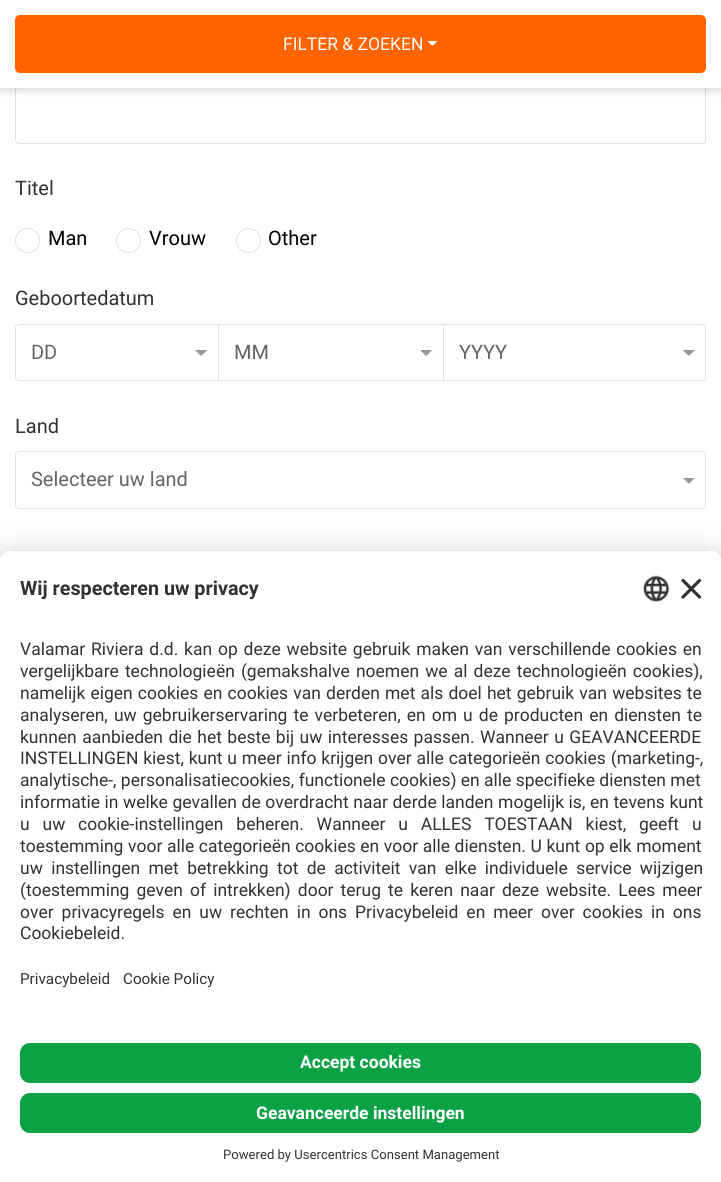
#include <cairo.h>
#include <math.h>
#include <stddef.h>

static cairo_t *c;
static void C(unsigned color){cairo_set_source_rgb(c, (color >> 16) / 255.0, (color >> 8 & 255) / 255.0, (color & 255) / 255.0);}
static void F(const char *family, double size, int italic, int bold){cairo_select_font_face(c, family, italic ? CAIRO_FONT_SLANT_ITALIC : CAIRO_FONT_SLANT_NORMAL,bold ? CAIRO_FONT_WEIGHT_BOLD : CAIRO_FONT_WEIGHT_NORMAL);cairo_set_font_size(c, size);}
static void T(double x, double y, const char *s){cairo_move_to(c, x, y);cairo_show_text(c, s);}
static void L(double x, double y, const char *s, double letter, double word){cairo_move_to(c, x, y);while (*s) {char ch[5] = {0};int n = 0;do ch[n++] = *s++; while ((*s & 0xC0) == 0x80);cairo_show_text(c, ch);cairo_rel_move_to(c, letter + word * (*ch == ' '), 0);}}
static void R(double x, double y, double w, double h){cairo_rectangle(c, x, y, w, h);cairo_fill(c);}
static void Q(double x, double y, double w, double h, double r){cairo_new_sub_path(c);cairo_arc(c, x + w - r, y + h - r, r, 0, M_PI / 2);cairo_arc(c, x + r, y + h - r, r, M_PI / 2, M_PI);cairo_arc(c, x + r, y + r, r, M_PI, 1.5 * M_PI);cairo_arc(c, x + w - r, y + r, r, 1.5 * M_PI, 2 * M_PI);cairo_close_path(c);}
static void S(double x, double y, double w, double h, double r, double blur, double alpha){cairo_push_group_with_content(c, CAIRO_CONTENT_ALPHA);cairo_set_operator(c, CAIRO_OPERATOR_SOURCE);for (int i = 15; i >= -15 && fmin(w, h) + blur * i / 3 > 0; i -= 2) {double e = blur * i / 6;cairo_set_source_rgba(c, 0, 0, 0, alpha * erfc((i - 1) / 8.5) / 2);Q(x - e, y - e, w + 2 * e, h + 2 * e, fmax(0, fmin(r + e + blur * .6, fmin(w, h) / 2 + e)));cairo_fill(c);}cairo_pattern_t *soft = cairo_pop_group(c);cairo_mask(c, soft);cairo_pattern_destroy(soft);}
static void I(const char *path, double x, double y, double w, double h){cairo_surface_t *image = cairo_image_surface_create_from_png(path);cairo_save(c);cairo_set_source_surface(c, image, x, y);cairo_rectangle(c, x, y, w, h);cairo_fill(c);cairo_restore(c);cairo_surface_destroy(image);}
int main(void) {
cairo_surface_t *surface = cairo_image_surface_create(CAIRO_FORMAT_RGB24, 721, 1182);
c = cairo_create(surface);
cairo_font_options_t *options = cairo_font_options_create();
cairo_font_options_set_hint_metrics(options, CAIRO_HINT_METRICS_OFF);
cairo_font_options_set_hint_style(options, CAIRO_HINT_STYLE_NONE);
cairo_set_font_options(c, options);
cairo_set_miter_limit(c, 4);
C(0xffffff);
cairo_paint(c);
Q(15.5,86.5,690,57,3.5);
C(0xe0e0e0);
cairo_set_line_width(c,1);
cairo_stroke(c);
C(0x000000);
S(0,4,721,87,0,4,.16);
C(0xffffff);
R(0,0,721,88);
C(0xff6400);
Q(15,15,691,58,5);
cairo_fill(c);
F("Roboto",17.5,0,0);
C(0xffffff);
T(283,50,"FILTER & ZOEKEN");
cairo_new_path(c);
cairo_move_to(c,427.5,41);
cairo_line_to(c,437.5,41);
cairo_line_to(c,432.5,46);
cairo_close_path(c);
cairo_fill(c);
F("Roboto",20,0,0);
C(0x323232);
T(15,195,"Titel");
cairo_new_path(c);
cairo_arc(c,27.5,240.5,12,0,2 * M_PI);
C(0xe0e0e0);
cairo_stroke(c);
C(0x000000);
T(48,245,"Man");
cairo_new_path(c);
cairo_arc(c,128.5,240.5,12,0,2 * M_PI);
C(0xe0e0e0);
cairo_stroke(c);
C(0x000000);
T(149,245,"Vrouw");
cairo_new_path(c);
cairo_arc(c,248.5,240.5,12,0,2 * M_PI);
C(0xe0e0e0);
cairo_stroke(c);
C(0x000000);
T(268,245,"Other");
C(0x323232);
T(15,305,"Geboortedatum");
C(0x969696);
cairo_new_path(c);
cairo_move_to(c,195,350);
cairo_line_to(c,207.5,350);
cairo_line_to(c,201,356);
cairo_close_path(c);
cairo_fill(c);
cairo_new_path(c);
cairo_move_to(c,19,324.5);
cairo_line_to(c,218.5,324.5);
cairo_line_to(c,218.5,380.5);
cairo_line_to(c,19,380.5);
cairo_curve_to(c,17,380.5,15.5,379,15.5,377);
cairo_line_to(c,15.5,328);
cairo_curve_to(c,15.5,326,17,324.5,19,324.5);
cairo_close_path(c);
C(0xe0e0e0);
cairo_stroke(c);
C(0x646464);
T(31,359,"DD");
C(0x969696);
cairo_new_path(c);
cairo_move_to(c,420,350);
cairo_line_to(c,432.5,350);
cairo_line_to(c,426,356);
cairo_close_path(c);
cairo_fill(c);
C(0xe0e0e0);
R(219,324,225,1);
R(443,324,1,57);
R(219,380,225,1);
C(0x646464);
T(234,359,"MM");
C(0x969696);
cairo_new_path(c);
cairo_move_to(c,682.5,350);
cairo_line_to(c,695,350);
cairo_line_to(c,689,356);
cairo_close_path(c);
cairo_fill(c);
C(0xe0e0e0);
cairo_set_fill_rule(c,CAIRO_FILL_RULE_EVEN_ODD);
cairo_new_path(c);
cairo_move_to(c,444,324);
cairo_line_to(c,702,324);
cairo_curve_to(c,705,324,706,325,706,328);
cairo_line_to(c,706,378);
cairo_curve_to(c,706,380,705,381,702,381);
cairo_line_to(c,444,381);
cairo_close_path(c);
cairo_move_to(c,444,325);
cairo_line_to(c,702,325);
cairo_curve_to(c,704,325,705,326,705,328);
cairo_line_to(c,705,378);
cairo_curve_to(c,705,379,704,380,702,380);
cairo_line_to(c,444,380);
cairo_close_path(c);
cairo_fill(c);
C(0x646464);
T(459,359,"YYYY");
C(0x323232);
T(15,433,"Land");
cairo_save(c);
cairo_set_fill_rule(c,CAIRO_FILL_RULE_WINDING);
cairo_rectangle(c,683,478,12,6);
cairo_clip(c);
C(0x969696);
cairo_new_path(c);
cairo_move_to(c,682.5,477.5);
cairo_line_to(c,695,477.5);
cairo_line_to(c,689,484);
cairo_close_path(c);
cairo_fill(c);
cairo_restore(c);
Q(15.5,451.5,690,57,3.5);
C(0xe0e0e0);
cairo_stroke(c);
C(0x646464);
T(31,486,"Selecteer uw land");
C(0x000000);
S(0,576,721,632,10,17.5,.3);
S(0,558,721,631,10,16,.22);
C(0xffffff);
cairo_new_path(c);
cairo_move_to(c,10,551);
cairo_line_to(c,711,551);
cairo_curve_to(c,716.5,551,721,555.5,721,561);
cairo_line_to(c,721,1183);
cairo_line_to(c,0,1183);
cairo_line_to(c,0,561);
cairo_curve_to(c,0,555.5,4.5,551,10,551);
cairo_close_path(c);
cairo_fill(c);
cairo_new_path(c);
cairo_move_to(c,10,551);
cairo_line_to(c,711,551);
cairo_curve_to(c,716.5,551,721,555.5,721,561);
cairo_line_to(c,721,1028);
cairo_line_to(c,0,1028);
cairo_line_to(c,0,561);
cairo_curve_to(c,0,555.5,4.5,551,10,551);
cairo_close_path(c);
cairo_fill(c);
F("Roboto",19.75,0,1);
C(0x323232);
T(20,595,"Wij respecteren uw privacy");
I("1.png",643,575,27,27);
I("2.png",681,579,20,20);
F("Roboto",17.5,0,0);
L(20,655,"Valamar Riviera d.d. kan op deze website gebruik maken van verschillende cookies en",0,1.5);
L(20,677,"vergelijkbare technologieën (gemakshalve noemen we al deze technologieën cookies),",0,1.75);
L(20,699,"namelijk eigen cookies en cookies van derden met als doel het gebruik van websites te",0,.8);
L(20,721,"analyseren, uw gebruikerservaring te verbeteren, en om u de producten en diensten te",0,1.75);
L(20,743,"kunnen aanbieden die het beste bij uw interesses passen. Wanneer u GEAVANCEERDE",0,1.1);
L(20,764,"INSTELLINGEN kiest, kunt u meer info krijgen over alle categorieën cookies (marketing-,",0,.5);
T(20,786,"analytische-, personalisatiecookies, functionele cookies) en alle specifieke diensten met");
L(20,808,"informatie in welke gevallen de overdracht naar derde landen mogelijk is, en tevens kunt",0,.25);
L(20,830,"u uw cookie-instellingen beheren. Wanneer u ALLES TOESTAAN kiest, geeft u",0,8.5);
L(20,852,"toestemming voor alle categorieën cookies en voor alle diensten. U kunt op elk moment",0,.25);
L(20,874,"uw instellingen met betrekking tot de activiteit van elke individuele service wijzigen",0,4);
L(20,896,"(toestemming geven of intrekken) door terug te keren naar deze website. Lees meer",0,2.75);
L(20,918,"over privacyregels en uw rechten in ons Privacybeleid en meer over cookies in ons",0,3.6);
T(20,939,"Cookiebeleid.");
F("Roboto",15.25,0,0);
T(20,984,"Privacybeleid");
T(123,984,"Cookie Policy");
C(0x0aa245);
Q(20,1043,681,40,10);
cairo_fill(c);
F("Roboto",17.5,0,1);
C(0xffffff);
T(300,1068,"Accept cookies");
C(0x0aa245);
Q(20,1093,681,40,10);
cairo_fill(c);
C(0xffffff);
T(256,1119,"Geavanceerde instellingen");
F("Roboto",13.1,0,0);
C(0x323232);
T(223,1159,"Powered by Usercentrics Consent Management");
cairo_surface_write_to_png(surface, "o.png");
cairo_font_options_destroy(options);
cairo_destroy(c);
cairo_surface_destroy(surface);
return 0;
}
